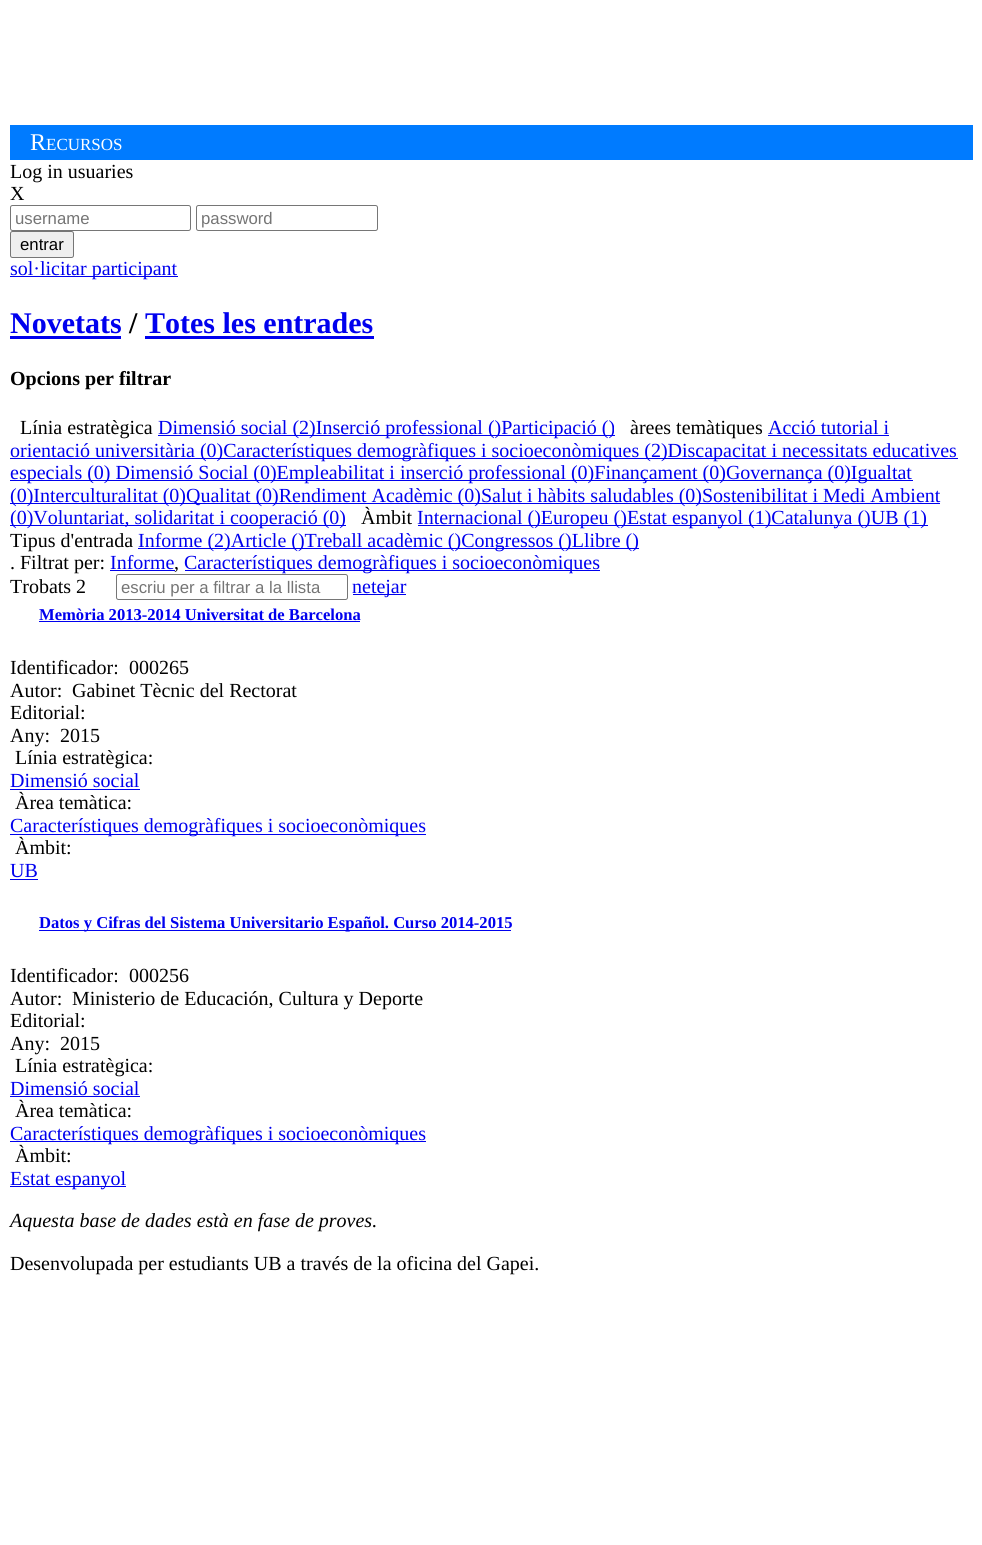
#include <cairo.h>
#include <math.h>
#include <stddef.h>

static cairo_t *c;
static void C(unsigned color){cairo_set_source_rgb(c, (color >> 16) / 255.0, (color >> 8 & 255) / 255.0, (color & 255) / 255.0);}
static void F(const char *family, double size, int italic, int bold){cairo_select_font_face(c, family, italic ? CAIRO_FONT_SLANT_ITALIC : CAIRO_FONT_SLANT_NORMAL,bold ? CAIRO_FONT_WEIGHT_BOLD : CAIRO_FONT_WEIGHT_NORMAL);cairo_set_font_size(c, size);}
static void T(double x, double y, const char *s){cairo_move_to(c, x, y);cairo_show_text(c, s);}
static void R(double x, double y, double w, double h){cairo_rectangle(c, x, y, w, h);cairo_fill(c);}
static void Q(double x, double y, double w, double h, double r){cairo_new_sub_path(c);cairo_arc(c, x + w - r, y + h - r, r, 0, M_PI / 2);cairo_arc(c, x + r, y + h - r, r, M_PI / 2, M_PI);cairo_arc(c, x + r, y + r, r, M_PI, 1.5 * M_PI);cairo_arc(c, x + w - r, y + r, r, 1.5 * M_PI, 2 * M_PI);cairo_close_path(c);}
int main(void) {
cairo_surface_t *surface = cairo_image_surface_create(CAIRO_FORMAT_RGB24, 982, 1545);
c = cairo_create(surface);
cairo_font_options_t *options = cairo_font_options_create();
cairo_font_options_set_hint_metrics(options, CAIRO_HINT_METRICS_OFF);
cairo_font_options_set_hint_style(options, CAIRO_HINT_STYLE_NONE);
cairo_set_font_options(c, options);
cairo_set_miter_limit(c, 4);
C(0xffffff);
cairo_paint(c);
C(0x007bff);
R(10,125,963,35);
F("Liberation Serif",24,0,0);
C(0xffffff);
T(30,150,"R");
F("Liberation Serif",17,0,0);
T(46,150,"ECURSOS");
F("Liberation Serif",20,0,0);
C(0x000000);
T(10,178,"Log in usuaries");
T(10,200,"X");
Q(10.5,205.5,180,25,2);
C(0x767676);
cairo_set_line_width(c,1);
cairo_stroke(c);
F("Liberation Sans",16.75,0,0);
C(0x757575);
T(15,224,"username");
Q(196.5,205.5,181,25,2);
C(0x767676);
cairo_stroke(c);
C(0x757575);
T(201,224,"password");
C(0xefefef);
Q(10.5,231.5,63,26,2);
cairo_fill_preserve(c);
C(0x767676);
cairo_stroke(c);
C(0x000000);
T(20,250,"entrar");
C(0x0000ee);
R(10,276,168,1);
F("Liberation Serif",20,0,0);
T(10,275,"sol·licitar participant");
F("Liberation Serif",30,0,1);
T(10,333,"Novetats");
R(10,336,111,3);
C(0x000000);
T(129,333,"/");
C(0x0000ee);
T(145,333,"Totes les entrades");
R(145,336,229,3);
F("Liberation Serif",20,0,1);
C(0x000000);
T(10,385,"Opcions per filtrar");
F("Liberation Serif",20,0,0);
T(20,434,"Línia estratègica");
C(0x0000ee);
R(158,435,457,1);
T(158,434,"Dimensió social (2)Inserció professional ()Participació ()");
C(0x000000);
T(630,434,"àrees temàtiques");
C(0x0000ee);
T(768,434,"Acció tutorial i");
R(768,435,121,1);
R(10,458,948,1);
T(10,457,"orientació universitària (0)Característiques demogràfiques i socioeconòmiques (2)Discapacitat i necessitats educatives");
R(10,480,903,1);
T(10,479,"especials (0) Dimensió Social (0)Empleabilitat i inserció professional (0)Finançament (0)Governança (0)Igualtat");
R(10,503,930,1);
T(10,502,"(0)Interculturalitat (0)Qualitat (0)Rendiment Acadèmic (0)Salut i hàbits saludables (0)Sostenibilitat i Medi Ambient");
R(10,525,336,1);
T(10,524,"(0)Voluntariat, solidaritat i cooperació (0)");
C(0x000000);
T(361,524,"Àmbit");
C(0x0000ee);
R(418,525,510,1);
T(417,524,"Internacional ()Europeu ()Estat espanyol (1)Catalunya ()UB (1)");
C(0x000000);
T(10,547,"Tipus d'entrada");
C(0x0000ee);
R(138,548,501,1);
T(138,547,"Informe (2)Article ()Treball acadèmic ()Congressos ()Llibre ()");
C(0x000000);
T(10,569,". Filtrat per:");
C(0x0000ee);
T(110,569,"Informe");
C(0x000000);
T(174,569,",");
C(0x0000ee);
R(110,570,65,1);
R(185,570,415,1);
T(184,569,"Característiques demogràfiques i socioeconòmiques");
C(0x000000);
T(10,593,"Trobats 2");
Q(116.5,574.5,231,25,2);
C(0x767676);
cairo_stroke(c);
F("Liberation Sans",16.75,0,0);
C(0x757575);
T(121,593,"escriu per a filtrar a la llista");
C(0x0000ee);
R(353,594,53,1);
F("Liberation Serif",20,0,0);
T(352,593,"netejar");
F("Liberation Serif",16.6,0,1);
T(39,620,"Memòria 2013-2014 Universitat de Barcelona");
R(39,621,321,1);
F("Liberation Serif",20,0,0);
C(0x000000);
T(10,674,"Identificador:");
T(129,674,"000265");
T(10,697,"Autor:");
T(72,697,"Gabinet Tècnic del Rectorat");
T(10,719,"Editorial:");
T(10,742,"Any:");
T(60,742,"2015");
T(15,764,"Línia estratègica:");
C(0x0000ee);
T(10,787,"Dimensió social");
R(10,789,130,1);
C(0x000000);
T(15,809,"Àrea temàtica:");
C(0x0000ee);
R(10,834,416,1);
T(10,832,"Característiques demogràfiques i socioeconòmiques");
C(0x000000);
T(15,854,"Àmbit:");
C(0x0000ee);
T(10,877,"UB");
R(10,879,28,1);
R(39,930,472,1);
F("Liberation Serif",16.6,0,1);
T(39,928,"Datos y Cifras del Sistema Universitario Español. Curso 2014-2015");
F("Liberation Serif",20,0,0);
C(0x000000);
T(10,982,"Identificador:");
T(129,982,"000256");
T(10,1005,"Autor:");
T(72,1005,"Ministerio de Educación, Cultura y Deporte");
T(10,1027,"Editorial:");
T(10,1050,"Any:");
T(60,1050,"2015");
T(15,1072,"Línia estratègica:");
C(0x0000ee);
T(10,1095,"Dimensió social");
R(10,1096,130,1);
C(0x000000);
T(15,1117,"Àrea temàtica:");
C(0x0000ee);
R(10,1141,416,1);
T(10,1140,"Característiques demogràfiques i socioeconòmiques");
C(0x000000);
T(15,1162,"Àmbit:");
C(0x0000ee);
R(10,1186,116,1);
T(10,1185,"Estat espanyol");
F("Liberation Serif",20,1,0);
C(0x000000);
T(10,1227,"Aquesta base de dades està en fase de proves.");
F("Liberation Serif",20,0,0);
T(10,1270,"Desenvolupada per estudiants UB a través de la oficina del Gapei.");
cairo_surface_write_to_png(surface, "o.png");
cairo_font_options_destroy(options);
cairo_destroy(c);
cairo_surface_destroy(surface);
return 0;
}
